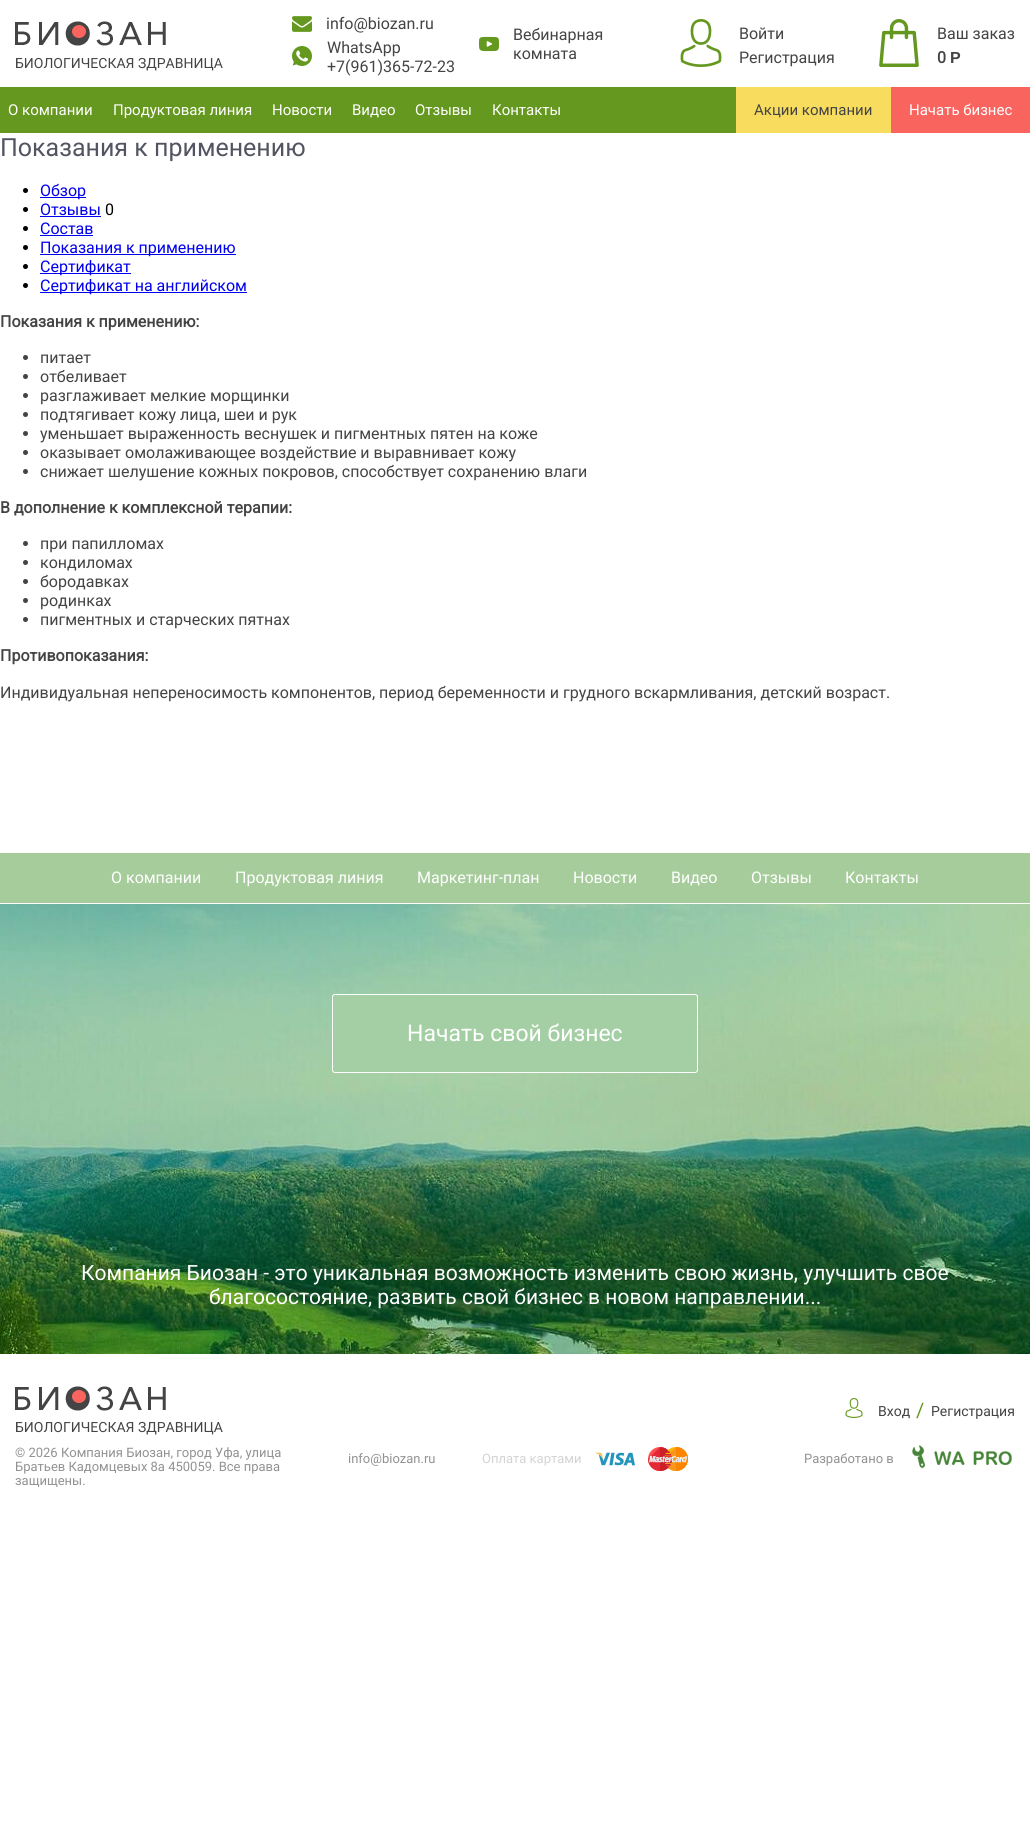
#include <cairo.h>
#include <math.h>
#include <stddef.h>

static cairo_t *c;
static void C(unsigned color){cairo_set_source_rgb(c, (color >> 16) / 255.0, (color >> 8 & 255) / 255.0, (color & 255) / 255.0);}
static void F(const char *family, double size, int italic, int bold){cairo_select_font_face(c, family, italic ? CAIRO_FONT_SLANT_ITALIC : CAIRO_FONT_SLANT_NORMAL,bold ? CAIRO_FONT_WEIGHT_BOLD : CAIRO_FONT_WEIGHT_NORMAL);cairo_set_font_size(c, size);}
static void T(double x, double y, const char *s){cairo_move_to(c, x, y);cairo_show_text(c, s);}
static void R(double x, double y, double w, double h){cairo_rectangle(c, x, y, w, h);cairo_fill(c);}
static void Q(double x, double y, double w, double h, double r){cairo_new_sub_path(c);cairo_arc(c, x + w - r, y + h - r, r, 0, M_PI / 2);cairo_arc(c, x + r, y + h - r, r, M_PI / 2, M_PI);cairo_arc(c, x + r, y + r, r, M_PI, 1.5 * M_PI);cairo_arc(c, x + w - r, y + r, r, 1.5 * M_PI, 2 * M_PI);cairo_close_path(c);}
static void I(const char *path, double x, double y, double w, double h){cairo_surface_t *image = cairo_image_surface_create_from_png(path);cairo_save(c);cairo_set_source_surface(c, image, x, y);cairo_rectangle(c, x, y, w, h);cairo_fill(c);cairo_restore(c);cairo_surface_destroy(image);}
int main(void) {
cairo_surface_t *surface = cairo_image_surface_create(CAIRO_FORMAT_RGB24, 1030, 1840);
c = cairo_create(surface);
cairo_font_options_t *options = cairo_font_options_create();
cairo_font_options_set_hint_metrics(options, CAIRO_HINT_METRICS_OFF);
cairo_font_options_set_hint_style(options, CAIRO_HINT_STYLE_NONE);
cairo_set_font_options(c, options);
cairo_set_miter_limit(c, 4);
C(0xffffff);
cairo_paint(c);
I("1.png",15,21,151,25);
F("Roboto",14,0,0);
C(0x444444);
T(15,68,"БИОЛОГИЧЕСКАЯ ЗДРАВНИЦА");
I("2.png",292,16,20,16);
F("Roboto",16,0,0);
T(326,29,"info@biozan.ru");
I("3.png",292,46,20,20);
T(327,53,"WhatsApp");
T(327,72,"+7(961)365-72-23");
I("4.png",479,36,20,16);
T(513,40,"Вебинарная");
T(513,59,"комната");
I("5.png",680,19,42,48);
T(739,39,"Войти");
T(739,63,"Регистрация");
I("6.png",879,19,40,48);
T(937,39,"Ваш заказ");
F("Roboto",16,0,1);
T(937,63,"0");
F("Liberation Sans",16,0,1);
T(950,63,"Р");
C(0x65981e);
R(0,87,736,46);
F("Roboto",15,0,0);
C(0xffffff);
T(8,115,"О компании");
T(113,115,"Продуктовая линия");
T(272,115,"Новости");
T(352,115,"Видео");
T(415,115,"Отзывы");
T(492,115,"Контакты");
C(0xf7dc5d);
R(736,87,155,46);
C(0x444444);
T(754,115,"Акции компании");
C(0xfa645f);
R(891,87,139,46);
C(0xffffff);
T(909,115,"Начать бизнес");
F("Roboto",25,0,0);
C(0x525462);
T(0,156,"Показания к применению");
C(0x000000);
cairo_new_path(c);
cairo_arc(c,25.5,190.5,2.5,0,2 * M_PI);
cairo_fill(c);
C(0x0000ee);
R(40,197,46,1);
F("Roboto",16,0,0);
T(40,196,"Обзор");
C(0x000000);
cairo_new_path(c);
cairo_arc(c,25.5,209.5,2.5,0,2 * M_PI);
cairo_fill(c);
C(0x0000ee);
T(40,215,"Отзывы");
R(40,216,61,1);
C(0x000000);
T(105,215,"0");
cairo_new_path(c);
cairo_arc(c,25.5,228.5,2.5,0,2 * M_PI);
cairo_fill(c);
C(0x0000ee);
T(40,234,"Состав");
R(40,235,53,1);
C(0x000000);
cairo_new_path(c);
cairo_arc(c,25.5,247.5,2.5,0,2 * M_PI);
cairo_fill(c);
C(0x0000ee);
R(40,254,196,1);
T(40,253,"Показания к применению");
C(0x000000);
cairo_new_path(c);
cairo_arc(c,25.5,266.5,2.5,0,2 * M_PI);
cairo_fill(c);
C(0x0000ee);
R(40,273,91,1);
T(40,272,"Сертификат");
C(0x000000);
cairo_new_path(c);
cairo_arc(c,25.5,285.5,2.5,0,2 * M_PI);
cairo_fill(c);
C(0x0000ee);
R(40,292,207,1);
T(40,291,"Сертификат на английском");
F("Roboto",16,0,1);
C(0x444444);
T(0,327,"Показания к применению:");
cairo_new_path(c);
cairo_arc(c,25.5,357.5,2.5,0,2 * M_PI);
cairo_fill(c);
F("Roboto",16,0,0);
T(40,363,"питает");
cairo_new_path(c);
cairo_arc(c,25.5,376.5,2.5,0,2 * M_PI);
cairo_fill(c);
T(40,382,"отбеливает");
cairo_new_path(c);
cairo_arc(c,25.5,395.5,2.5,0,2 * M_PI);
cairo_fill(c);
T(40,401,"разглаживает мелкие морщинки");
cairo_new_path(c);
cairo_arc(c,25.5,414.5,2.5,0,2 * M_PI);
cairo_fill(c);
T(40,420,"подтягивает кожу лица, шеи и рук");
cairo_new_path(c);
cairo_arc(c,25.5,433.5,2.5,0,2 * M_PI);
cairo_fill(c);
T(40,439,"уменьшает выраженность веснушек и пигментных пятен на коже");
cairo_new_path(c);
cairo_arc(c,25.5,452.5,2.5,0,2 * M_PI);
cairo_fill(c);
T(40,458,"оказывает омолаживающее воздействие и выравнивает кожу");
cairo_new_path(c);
cairo_arc(c,25.5,471.5,2.5,0,2 * M_PI);
cairo_fill(c);
T(40,477,"снижает шелушение кожных покровов, способствует сохранению влаги");
F("Roboto",16,0,1);
T(0,513,"В дополнение к комплексной терапии:");
cairo_new_path(c);
cairo_arc(c,25.5,543.5,2.5,0,2 * M_PI);
cairo_fill(c);
F("Roboto",16,0,0);
T(40,549,"при папилломах");
cairo_new_path(c);
cairo_arc(c,25.5,562.5,2.5,0,2 * M_PI);
cairo_fill(c);
T(40,568,"кондиломах");
cairo_new_path(c);
cairo_arc(c,25.5,581.5,2.5,0,2 * M_PI);
cairo_fill(c);
T(40,587,"бородавках");
cairo_new_path(c);
cairo_arc(c,25.5,600.5,2.5,0,2 * M_PI);
cairo_fill(c);
T(40,606,"родинках");
cairo_new_path(c);
cairo_arc(c,25.5,619.5,2.5,0,2 * M_PI);
cairo_fill(c);
T(40,625,"пигментных и старческих пятнах");
F("Roboto",16,0,1);
T(0,661,"Противопоказания:");
F("Roboto",16,0,0);
T(0,698,"Индивидуальная непереносимость компонентов, период беременности и грудного вскармливания, детский возраст.");
C(0xa6cc9b);
R(0,853,1030,50);
C(0xffffff);
T(111,883,"О компании");
T(235,883,"Продуктовая линия");
T(417,883,"Маркетинг-план");
T(573,883,"Новости");
T(671,883,"Видео");
T(751,883,"Отзывы");
T(845,883,"Контакты");
I("11.png",0,904,1030,450);
C(0xa4cfa4);
Q(332.5,994.5,365,78,2.5);
cairo_fill_preserve(c);
C(0xffffff);
cairo_set_line_width(c,1);
cairo_stroke(c);
F("Roboto",23,0,0);
T(407,1041,"Начать свой бизнес");
F("Roboto",21,0,0);
T(81,1280,"Компания Биозан - это уникальная возможность изменить свою жизнь, улучшить свое");
T(209,1304,"благосостояние, развить свой бизнес в новом направлении...");
I("7.png",845,1398,18,20);
F("Roboto",14,0,0);
C(0x444444);
T(878,1416,"Вход");
F("Roboto",20,0,0);
C(0x65981e);
T(916,1417,"/");
F("Roboto",14,0,0);
C(0x444444);
T(931,1416,"Регистрация");
I("1.png",15,1386,151,25);
T(15,1432,"БИОЛОГИЧЕСКАЯ ЗДРАВНИЦА");
F("Roboto",13,0,0);
C(0x929292);
T(15,1457,"© 2026 Компания Биозан, город Уфа, улица");
T(15,1471,"Братьев Кадомцевых 8а 450059. Все права");
T(15,1485,"защищены.");
T(348,1463,"info@biozan.ru");
C(0xd3d3d3);
T(482,1463,"Оплата картами");
I("8.png",595,1452,40,14);
I("9.png",648,1447,40,24);
C(0x929292);
T(804,1463,"Разработано в");
I("10.png",912,1445,100,24);
cairo_surface_write_to_png(surface, "o.png");
cairo_font_options_destroy(options);
cairo_destroy(c);
cairo_surface_destroy(surface);
return 0;
}
